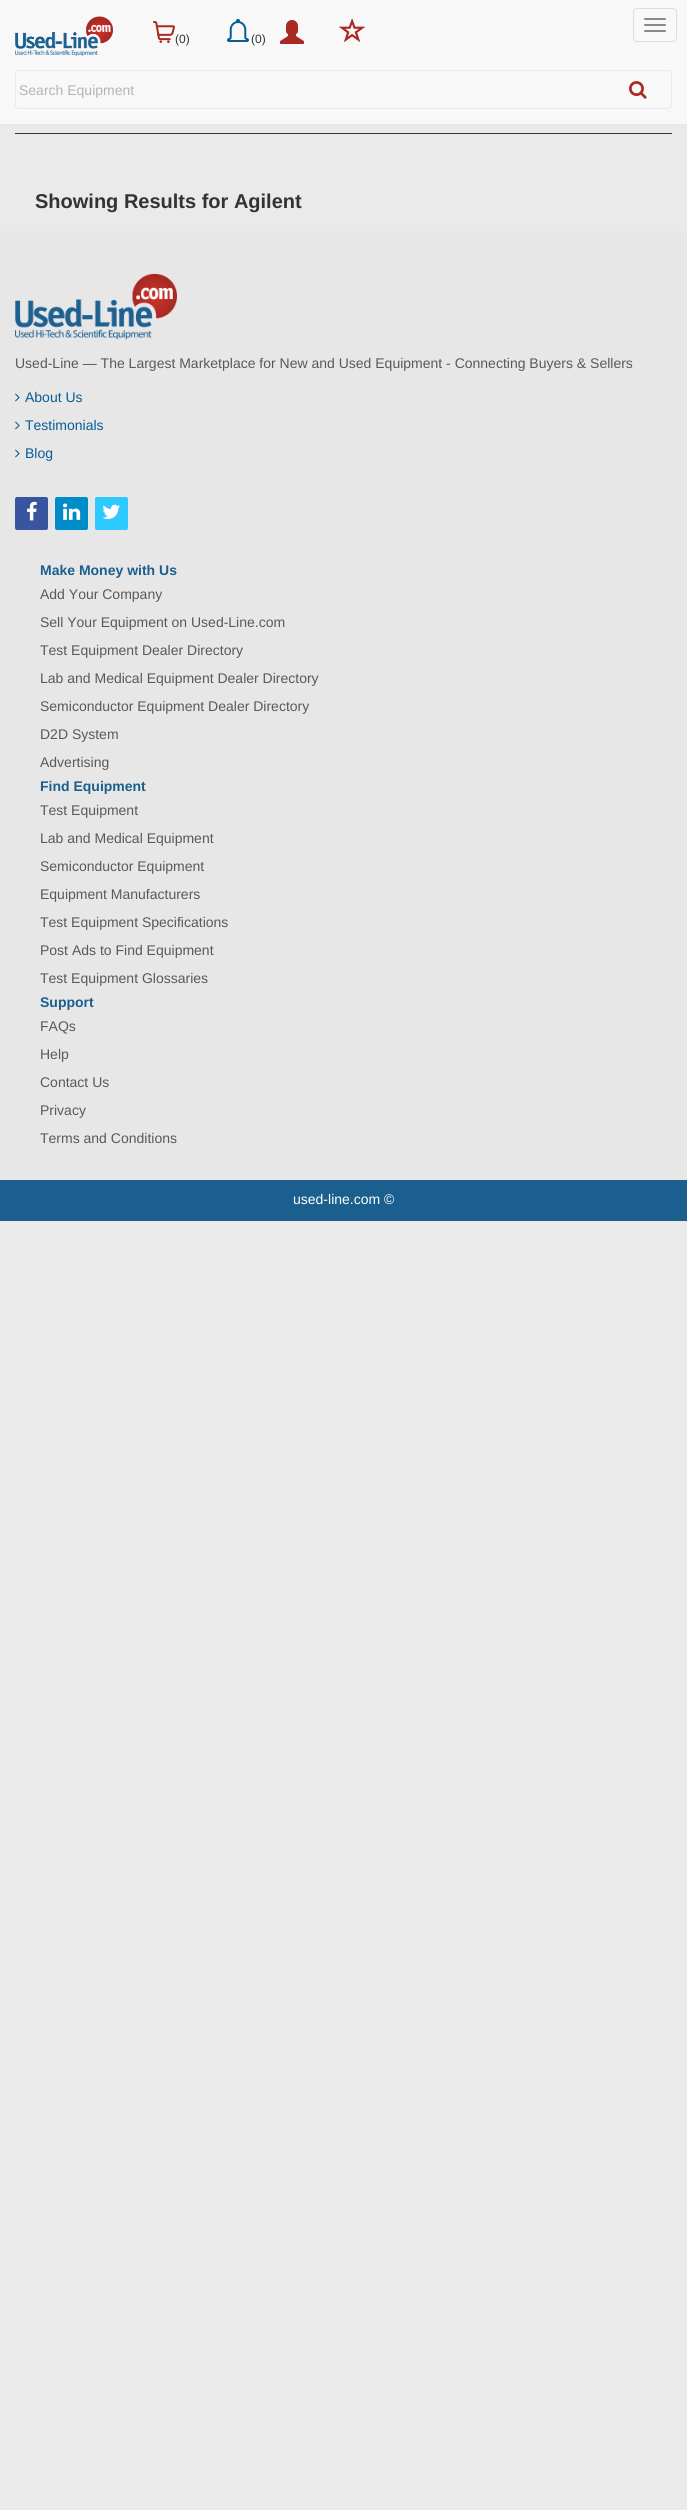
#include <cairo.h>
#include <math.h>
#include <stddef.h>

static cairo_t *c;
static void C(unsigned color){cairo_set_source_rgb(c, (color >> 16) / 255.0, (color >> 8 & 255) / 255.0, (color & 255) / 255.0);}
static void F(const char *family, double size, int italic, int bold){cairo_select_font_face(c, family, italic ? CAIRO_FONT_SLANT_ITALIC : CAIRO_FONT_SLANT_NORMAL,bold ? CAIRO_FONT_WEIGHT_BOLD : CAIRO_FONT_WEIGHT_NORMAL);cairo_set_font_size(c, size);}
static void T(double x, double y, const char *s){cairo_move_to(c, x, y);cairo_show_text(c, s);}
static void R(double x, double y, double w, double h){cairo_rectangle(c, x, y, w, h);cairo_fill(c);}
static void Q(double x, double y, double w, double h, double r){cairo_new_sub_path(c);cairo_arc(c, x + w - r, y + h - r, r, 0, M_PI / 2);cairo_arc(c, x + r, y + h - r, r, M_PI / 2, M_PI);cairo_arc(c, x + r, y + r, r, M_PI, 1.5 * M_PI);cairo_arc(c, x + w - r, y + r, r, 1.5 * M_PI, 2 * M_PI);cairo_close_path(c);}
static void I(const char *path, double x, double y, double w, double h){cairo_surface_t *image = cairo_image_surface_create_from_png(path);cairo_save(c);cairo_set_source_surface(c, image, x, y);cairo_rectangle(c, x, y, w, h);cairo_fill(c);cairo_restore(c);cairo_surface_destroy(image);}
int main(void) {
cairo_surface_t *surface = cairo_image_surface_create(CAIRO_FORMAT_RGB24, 687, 2510);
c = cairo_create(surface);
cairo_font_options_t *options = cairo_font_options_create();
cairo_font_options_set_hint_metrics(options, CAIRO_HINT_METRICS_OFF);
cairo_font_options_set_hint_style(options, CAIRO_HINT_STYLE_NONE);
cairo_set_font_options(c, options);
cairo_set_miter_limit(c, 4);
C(0xeaeaea);
cairo_paint(c);
C(0xf8f8f8);
R(0,0,687,124);
C(0xe7e7e7);
R(0,124,687,1);
I("1.png",15,16,98,40);
I("2.png",153,21,22,22);
F("Liberation Sans",12,0,0);
C(0x333333);
T(175,43,"(0)");
I("3.png",227,19,22,23);
T(251,43,"(0)");
I("4.png",280,20,24,24);
I("5.png",339,18,26,24);
Q(633.5,8.5,43,33,3.5);
C(0xdddddd);
cairo_set_line_width(c,1);
cairo_stroke(c);
C(0x888888);
Q(644,18,22,2,1);
cairo_fill(c);
Q(644,24,22,2,1);
cairo_fill(c);
Q(644,30,22,2,1);
cairo_fill(c);
Q(15.5,70.5,656,38,3.5);
C(0xeaeaea);
cairo_stroke(c);
F("Liberation Sans",14,0,0);
C(0xb4b4b4);
T(19,95,"Search Equipment");
I("6.png",629,81,18,18);
C(0x333333);
R(15,133,657,1);
F("Liberation Sans",20,0,1);
T(35,208,"Showing Results for Agilent");
C(0xe7e7e7);
R(0,231,687,949);
I("7.png",15,273,162,67);
F("Liberation Sans",14,0,0);
C(0x595959);
T(15,368,"Used-Line — The Largest Marketplace for New and Used Equipment - Connecting Buyers & Sellers");
I("8.png",15,393,5,9);
C(0x075d94);
T(25,402,"About Us");
I("8.png",15,421,5,9);
T(25,430,"Testimonials");
I("8.png",15,449,5,9);
T(25,458,"Blog");
C(0x3a559f);
Q(15,497,33,33,2);
cairo_fill(c);
I("9.png",27,501,10,20);
C(0x008cc9);
Q(55,497,33,33,2);
cairo_fill(c);
I("10.png",63,503,18,17);
C(0x2dc9ff);
Q(95,497,33,33,2);
cairo_fill(c);
I("11.png",102,504,18,15);
F("Liberation Sans",14,0,1);
C(0x1a5f8e);
T(40,575,"Make Money with Us");
F("Liberation Sans",14,0,0);
C(0x595959);
T(40,599,"Add Your Company");
T(40,627,"Sell Your Equipment on Used-Line.com");
T(40,655,"Test Equipment Dealer Directory");
T(40,683,"Lab and Medical Equipment Dealer Directory");
T(40,711,"Semiconductor Equipment Dealer Directory");
T(40,739,"D2D System");
T(40,767,"Advertising");
F("Liberation Sans",14,0,1);
C(0x1a5f8e);
T(40,791,"Find Equipment");
F("Liberation Sans",14,0,0);
C(0x595959);
T(40,815,"Test Equipment");
T(40,843,"Lab and Medical Equipment");
T(40,871,"Semiconductor Equipment");
T(40,899,"Equipment Manufacturers");
T(40,927,"Test Equipment Specifications");
T(40,955,"Post Ads to Find Equipment");
T(40,983,"Test Equipment Glossaries");
F("Liberation Sans",14,0,1);
C(0x1a5f8e);
T(40,1007,"Support");
F("Liberation Sans",14,0,0);
C(0x595959);
T(40,1031,"FAQs");
T(40,1059,"Help");
T(40,1087,"Contact Us");
T(40,1115,"Privacy");
T(40,1143,"Terms and Conditions");
C(0x1a5f8e);
R(0,1180,687,41);
C(0xffffff);
T(293,1204,"used-line.com ©");
cairo_surface_write_to_png(surface, "o.png");
cairo_font_options_destroy(options);
cairo_destroy(c);
cairo_surface_destroy(surface);
return 0;
}
